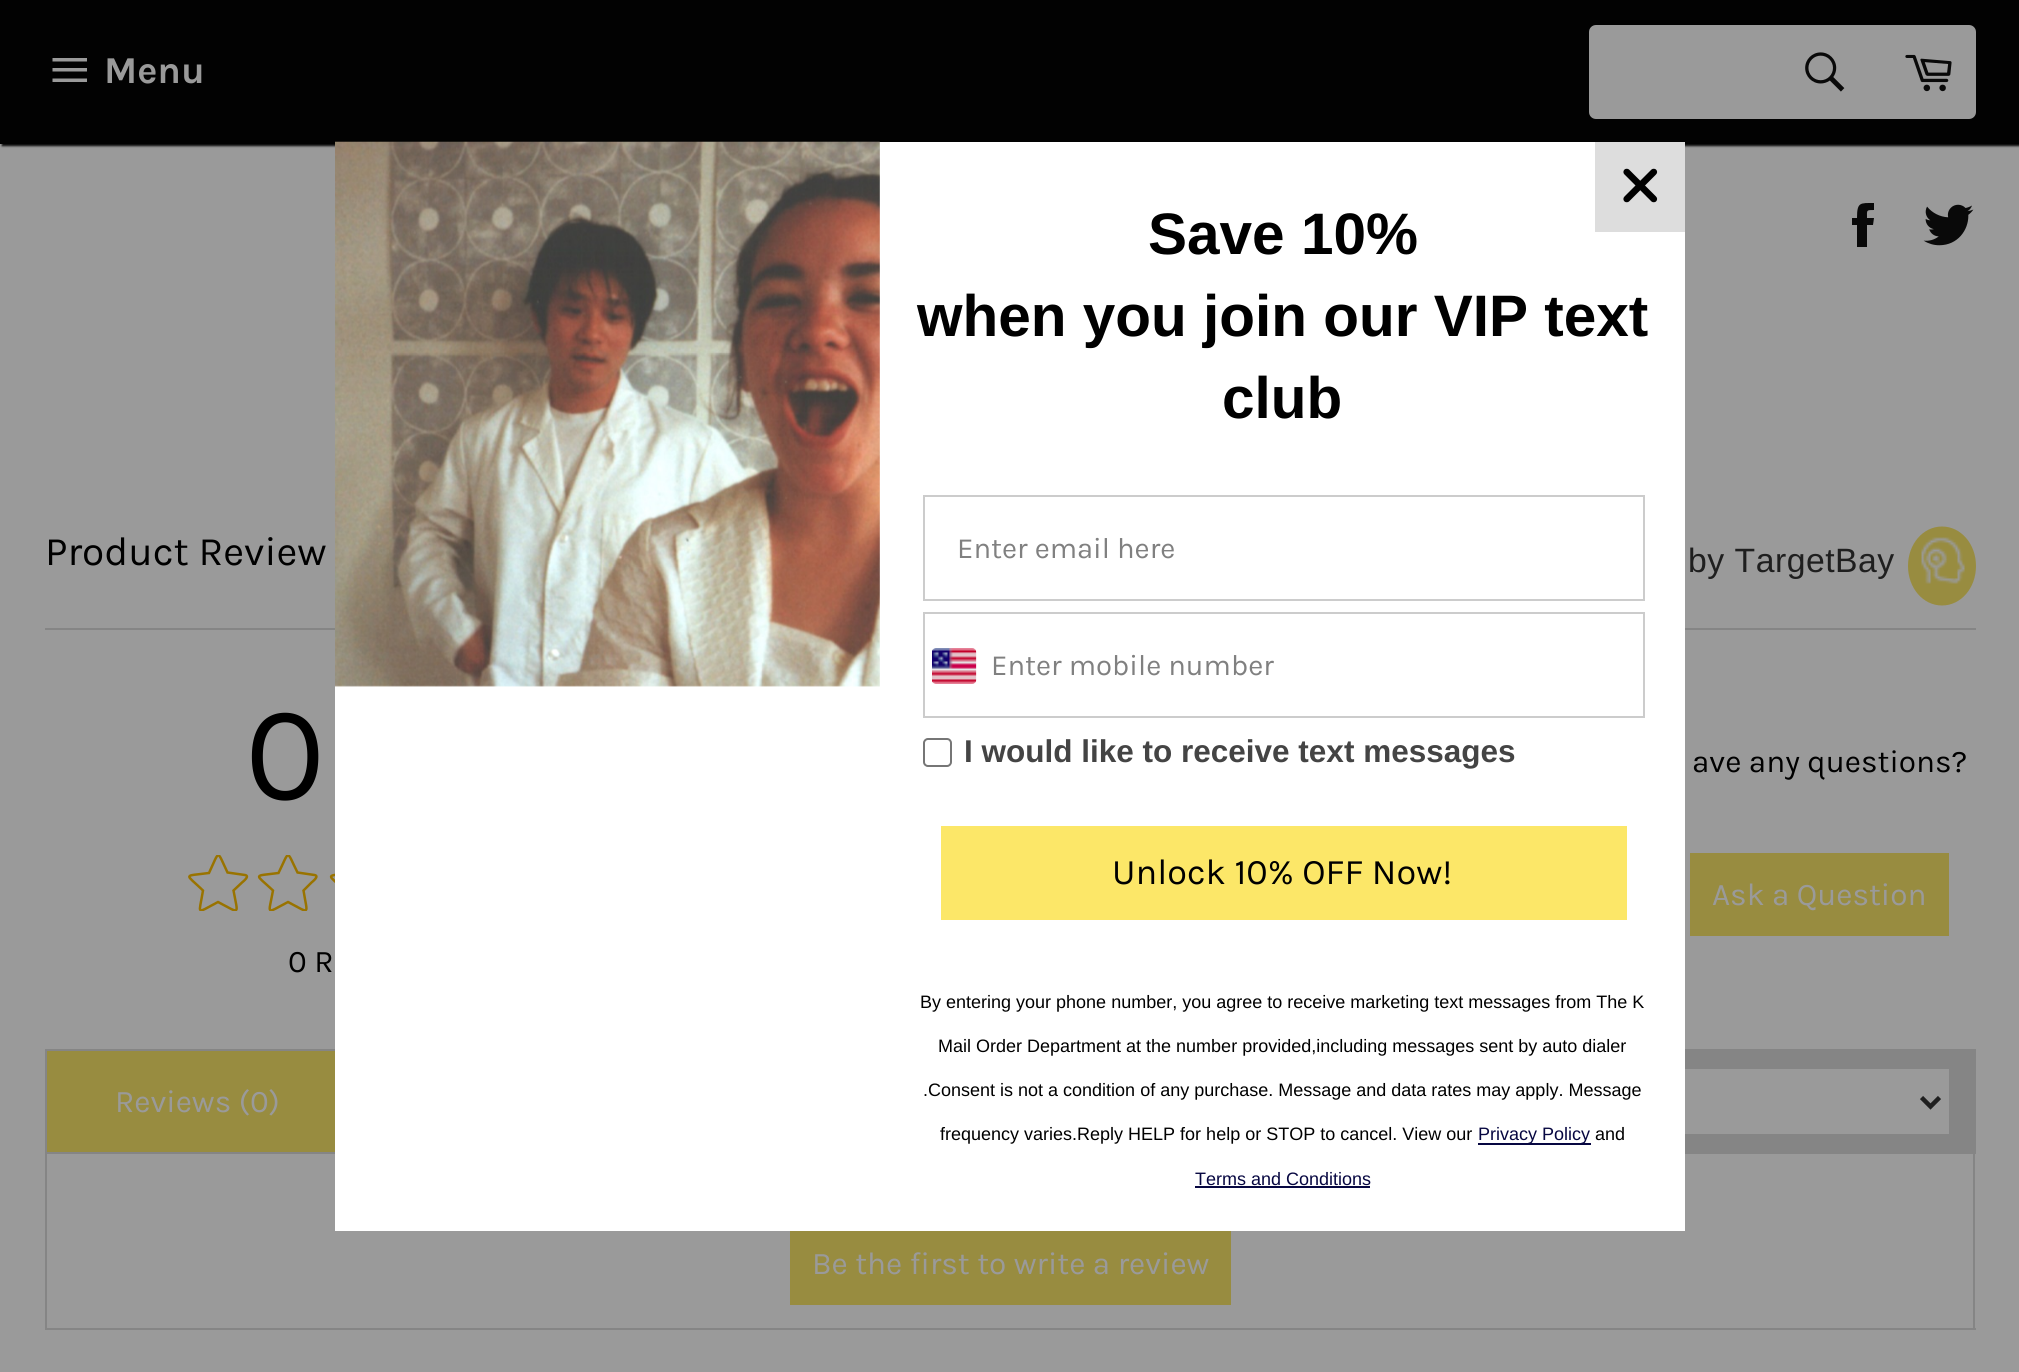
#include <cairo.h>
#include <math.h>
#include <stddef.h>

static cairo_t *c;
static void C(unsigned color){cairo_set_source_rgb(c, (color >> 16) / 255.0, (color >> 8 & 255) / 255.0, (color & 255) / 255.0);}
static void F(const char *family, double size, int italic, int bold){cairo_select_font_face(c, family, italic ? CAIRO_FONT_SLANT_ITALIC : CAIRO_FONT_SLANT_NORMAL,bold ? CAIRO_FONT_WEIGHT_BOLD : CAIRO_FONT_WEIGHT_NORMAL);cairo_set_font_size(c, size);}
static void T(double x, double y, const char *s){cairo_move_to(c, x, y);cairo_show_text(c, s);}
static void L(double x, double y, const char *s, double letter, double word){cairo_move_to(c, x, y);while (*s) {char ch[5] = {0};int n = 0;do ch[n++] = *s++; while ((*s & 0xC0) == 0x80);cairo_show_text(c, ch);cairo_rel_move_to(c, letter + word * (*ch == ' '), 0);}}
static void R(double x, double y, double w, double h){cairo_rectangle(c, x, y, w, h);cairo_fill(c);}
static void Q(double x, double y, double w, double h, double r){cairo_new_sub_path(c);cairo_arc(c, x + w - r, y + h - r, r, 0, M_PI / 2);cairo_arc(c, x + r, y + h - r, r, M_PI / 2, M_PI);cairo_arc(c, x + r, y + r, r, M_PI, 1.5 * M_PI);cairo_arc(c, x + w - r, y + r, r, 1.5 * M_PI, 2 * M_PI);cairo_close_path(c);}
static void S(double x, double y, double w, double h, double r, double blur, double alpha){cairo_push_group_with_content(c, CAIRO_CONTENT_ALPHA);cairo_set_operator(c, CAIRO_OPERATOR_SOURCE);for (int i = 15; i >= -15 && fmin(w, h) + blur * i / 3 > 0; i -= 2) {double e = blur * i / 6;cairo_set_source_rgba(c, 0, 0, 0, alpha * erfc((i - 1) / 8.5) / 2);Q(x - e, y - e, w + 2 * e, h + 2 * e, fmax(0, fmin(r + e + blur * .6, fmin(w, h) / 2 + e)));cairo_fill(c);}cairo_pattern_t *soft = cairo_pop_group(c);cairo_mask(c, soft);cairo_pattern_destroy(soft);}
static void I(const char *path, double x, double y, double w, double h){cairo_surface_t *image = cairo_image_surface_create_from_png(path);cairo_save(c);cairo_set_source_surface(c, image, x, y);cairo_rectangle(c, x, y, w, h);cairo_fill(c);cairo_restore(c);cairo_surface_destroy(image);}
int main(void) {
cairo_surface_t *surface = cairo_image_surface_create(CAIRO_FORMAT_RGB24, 2019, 1372);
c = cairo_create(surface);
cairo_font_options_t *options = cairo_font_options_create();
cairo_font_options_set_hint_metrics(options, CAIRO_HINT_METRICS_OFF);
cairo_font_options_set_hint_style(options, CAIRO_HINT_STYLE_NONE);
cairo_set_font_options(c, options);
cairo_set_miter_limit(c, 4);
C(0x9a9a9a);
cairo_paint(c);
C(0x090909);
S(2,2,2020,144,0,1,1);
C(0x020202);
R(0,0,2019,144);
C(0x9a9a9a);
cairo_new_path(c);
cairo_move_to(c,52.5,68);
cairo_line_to(c,87,68);
cairo_line_to(c,87,71.5);
cairo_line_to(c,52.5,71.5);
cairo_close_path(c);
cairo_move_to(c,52.5,58);
cairo_line_to(c,87,58);
cairo_line_to(c,87,61.5);
cairo_line_to(c,52.5,61.5);
cairo_close_path(c);
cairo_move_to(c,52.5,78.5);
cairo_line_to(c,87,78.5);
cairo_line_to(c,87,82);
cairo_line_to(c,52.5,82);
cairo_close_path(c);
cairo_fill(c);
F("Karla",38,0,1);
T(104,83,"Menu");
Q(1589,25,387,94,7);
cairo_fill(c);
I("1.png",1805,52,40,40);
I("2.png",1905,54,47,38);
C(0x858585);
R(45,628,1931,2);
cairo_new_path(c);
cairo_move_to(c,386.5,875);
cairo_curve_to(c,392,876,384,882,383.5,882.5);
cairo_line_to(c,375.5,890.5);
cairo_curve_to(c,379.5,915.5,383,914,360,902);
cairo_curve_to(c,337,914,340.5,915.5,345,890.5);
cairo_curve_to(c,326.5,873,324.5,876.5,350.5,873);
cairo_curve_to(c,362,849.5,358,849.5,369.5,872.5);
cairo_close_path(c);
C(0x997300);
cairo_set_line_width(c,2.5);
cairo_stroke(c);
C(0x858585);
R(45,1049,1931,105);
C(0xffffff);
R(335,142,1350,1089);
C(0xdddddd);
R(1595,142,90,90);
C(0x000000);
cairo_new_path(c);
cairo_move_to(c,1629,169.5);
cairo_line_to(c,1656,196.5);
cairo_curve_to(c,1657.5,198,1657.5,200,1656,201.5);
cairo_curve_to(c,1655,202.5,1652.5,202.5,1651.5,201.5);
cairo_line_to(c,1624.5,174.5);
cairo_curve_to(c,1623,173,1623,171,1624.5,169.5);
cairo_curve_to(c,1625.5,168.5,1628,168.5,1629,169.5);
cairo_close_path(c);
cairo_fill(c);
cairo_new_path(c);
cairo_move_to(c,1624.5,196.5);
cairo_line_to(c,1651.5,169.5);
cairo_curve_to(c,1652.5,168.5,1655,168.5,1656,169.5);
cairo_curve_to(c,1657.5,171,1657.5,173,1656,174.5);
cairo_line_to(c,1629,201.5);
cairo_curve_to(c,1628,202.5,1625.5,202.5,1624.5,201.5);
cairo_curve_to(c,1623,200,1623,198,1624.5,196.5);
cairo_close_path(c);
cairo_fill(c);
I("3.png",335,141,545,546);
F("Liberation Sans",58.5,0,1);
T(1148,254,"Save 10%");
T(917,336,"when you join our VIP text");
T(1222,418,"club");
cairo_rectangle(c,924,496,720,104);
C(0xcccccc);
cairo_set_line_width(c,2);
cairo_stroke(c);
F("Karla",29.25,0,0);
C(0x808080);
T(957,558,"Enter email here");
I("4.png",932,648,45,36);
cairo_rectangle(c,924,613,720,104);
C(0xcccccc);
cairo_stroke(c);
C(0x808080);
T(991,675,"Enter mobile number");
Q(924,739,27,27,4);
C(0x767676);
cairo_stroke(c);
F("Liberation Sans",31.5,0,1);
C(0x444444);
T(964,762,"I would like to receive text messages");
C(0xfce768);
R(941,826,686,94);
F("Karla",36,0,0);
C(0x000000);
T(1112,884,"Unlock 10% OFF Now!");
F("Liberation Sans",18,0,0);
T(920,1008,"By entering your phone number, you agree to receive marketing text messages from The K");
T(938,1052,"Mail Order Department at the number provided,including messages sent by auto dialer");
T(923,1096,".Consent is not a condition of any purchase. Message and data rates may apply. Message");
T(940,1140,"frequency varies.Reply HELP for help or STOP to cancel. View our");
C(0x070741);
R(1478,1143,113,2);
T(1478,1140,"Privacy Policy");
C(0x000000);
T(1595,1140,"and");
C(0x070741);
T(1195,1185,"Terms and Conditions");
R(1195,1186,175,2);
C(0x090909);
cairo_new_path(c);
cairo_move_to(c,1867,218);
cairo_curve_to(c,1867,210,1866,210,1874,210);
cairo_line_to(c,1874,203);
cairo_curve_to(c,1860,203,1857,202,1857,218);
cairo_line_to(c,1852,218);
cairo_line_to(c,1852,225);
cairo_line_to(c,1857,225);
cairo_line_to(c,1857,247);
cairo_line_to(c,1867,247);
cairo_line_to(c,1867,225);
cairo_line_to(c,1873,225);
cairo_line_to(c,1874,218);
cairo_close_path(c);
cairo_fill(c);
I("5.png",1923,204,51,42);
F("Karla",40.5,0,0);
C(0x000000);
T(45,565,"Product Review");
F("Liberation Sans",33.75,0,0);
C(0x1f1f1f);
L(1688,572,"by TargetBay",.5,0);
C(0x988c40);
cairo_new_path(c);
cairo_move_to(c,1942,526.5);
cairo_curve_to(c,1961,526.5,1976,544,1976,566);
cairo_curve_to(c,1976,588,1961,605.5,1942,605.5);
cairo_curve_to(c,1923,605.5,1908,588,1908,566);
cairo_curve_to(c,1908,544,1923,526.5,1942,526.5);
cairo_close_path(c);
cairo_fill(c);
I("6.png",1921,537,44,47);
F("Karla",135,0,0);
C(0x000000);
L(245,799,"0",4,0);
cairo_save(c);
cairo_rectangle(c,187,855,63,56);
cairo_clip(c);
cairo_new_path(c);
cairo_move_to(c,245,875);
cairo_curve_to(c,250.5,876,242.5,882,242,882.5);
cairo_line_to(c,233.5,890.5);
cairo_curve_to(c,238,915.5,241,914,218,902);
cairo_curve_to(c,195,914,199,915.5,203,890.5);
cairo_curve_to(c,185,873,182.5,876.5,209,873);
cairo_curve_to(c,220,849.5,216.5,849.5,227.5,872.5);
cairo_close_path(c);
C(0x997300);
cairo_set_line_width(c,2.5);
cairo_stroke(c);
cairo_restore(c);
cairo_save(c);
cairo_rectangle(c,257,855,63,56);
cairo_clip(c);
cairo_new_path(c);
cairo_move_to(c,314.5,875);
cairo_curve_to(c,320,876,312,882,311.5,882.5);
cairo_line_to(c,303.5,890.5);
cairo_curve_to(c,307.5,915.5,311,914,288,902);
cairo_curve_to(c,265,914,268.5,915.5,273,890.5);
cairo_curve_to(c,254.5,873,252.5,876.5,278.5,873);
cairo_curve_to(c,290,849.5,286,849.5,297.5,872.5);
cairo_close_path(c);
C(0x997300);
cairo_set_line_width(c,2.5);
cairo_stroke(c);
cairo_restore(c);
F("Karla",31.5,0,0);
T(288,972,"0 R");
T(1692,772,"ave any questions?");
C(0x988c40);
R(1690,853,259,83);
C(0x9a9a9a);
T(1712,905,"Ask a Question");
C(0x988c40);
R(47,1051,288,101);
C(0x9a9a9a);
T(115,1112,"Reviews (0)");
R(1685,1069,264,65);
cairo_new_path(c);
cairo_move_to(c,1921.5,1097.5);
cairo_line_to(c,1930.5,1106.5);
cairo_line_to(c,1939.5,1097.5);
C(0x1f1f1f);
cairo_set_line_width(c,4.5);
cairo_stroke(c);
C(0x858585);
R(1973,1154,2,176);
R(45,1328,1931,2);
R(45,1154,2,176);
C(0x988c40);
R(790,1231,441,74);
C(0x9a9a9a);
T(812,1274,"Be the first to write a review");
cairo_surface_write_to_png(surface, "o.png");
cairo_font_options_destroy(options);
cairo_destroy(c);
cairo_surface_destroy(surface);
return 0;
}
